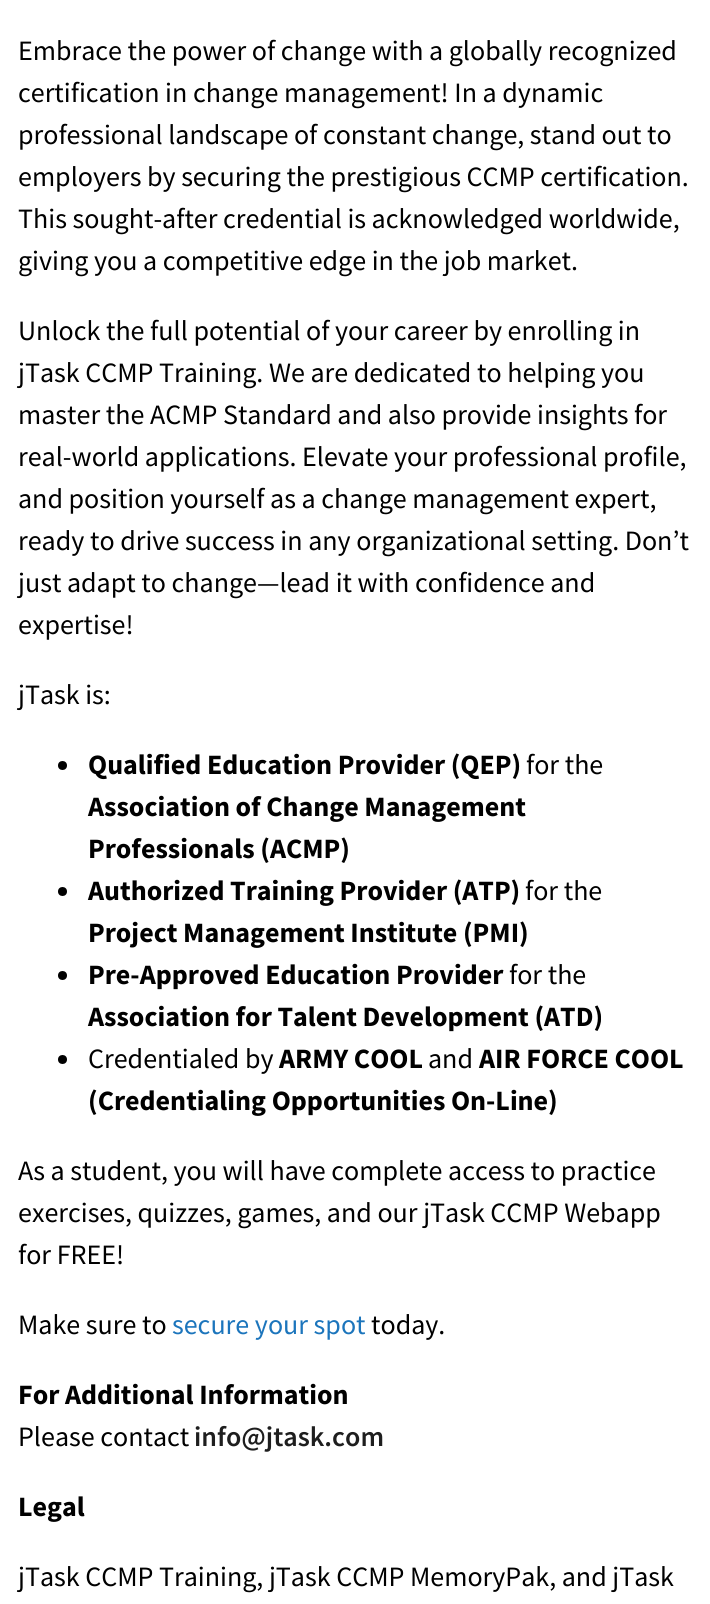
#include <cairo.h>
#include <math.h>
#include <stddef.h>

static cairo_t *c;
static void C(unsigned color){cairo_set_source_rgb(c, (color >> 16) / 255.0, (color >> 8 & 255) / 255.0, (color & 255) / 255.0);}
static void F(const char *family, double size, int italic, int bold){cairo_select_font_face(c, family, italic ? CAIRO_FONT_SLANT_ITALIC : CAIRO_FONT_SLANT_NORMAL,bold ? CAIRO_FONT_WEIGHT_BOLD : CAIRO_FONT_WEIGHT_NORMAL);cairo_set_font_size(c, size);}
static void T(double x, double y, const char *s){cairo_move_to(c, x, y);cairo_show_text(c, s);}
int main(void) {
cairo_surface_t *surface = cairo_image_surface_create(CAIRO_FORMAT_RGB24, 710, 1604);
c = cairo_create(surface);
cairo_font_options_t *options = cairo_font_options_create();
cairo_font_options_set_hint_metrics(options, CAIRO_HINT_METRICS_OFF);
cairo_font_options_set_hint_style(options, CAIRO_HINT_STYLE_NONE);
cairo_set_font_options(c, options);
cairo_set_miter_limit(c, 4);
C(0xffffff);
cairo_paint(c);
F("Source Sans Pro",28,0,0);
C(0x000000);
T(18,60,"Embrace the power of change with a globally recognized");
T(18,102,"certification in change management! In a dynamic");
T(18,144,"professional landscape of constant change, stand out to");
T(18,186,"employers by securing the prestigious CCMP certification.");
T(18,228,"This sought-after credential is acknowledged worldwide,");
T(18,270,"giving you a competitive edge in the job market.");
T(18,340,"Unlock the full potential of your career by enrolling in");
T(18,382,"jTask CCMP Training. We are dedicated to helping you");
T(18,424,"master the ACMP Standard and also provide insights for");
T(18,466,"real-world applications. Elevate your professional profile,");
T(18,508,"and position yourself as a change management expert,");
T(18,550,"ready to drive success in any organizational setting. Don’t");
T(18,592,"just adapt to change—lead it with confidence and");
T(18,634,"expertise!");
T(18,704,"jTask is:");
cairo_new_path(c);
cairo_arc(c,62.5,765.5,4.5,0,2 * M_PI);
cairo_fill(c);
F("Source Sans Pro",28,0,1);
T(88,774,"Qualified Education Provider (QEP)");
F("Source Sans Pro",28,0,0);
T(526,774,"for the");
F("Source Sans Pro",28,0,1);
T(88,816,"Association of Change Management");
T(88,858,"Professionals (ACMP)");
cairo_new_path(c);
cairo_arc(c,62.5,891.5,4.5,0,2 * M_PI);
cairo_fill(c);
T(88,900,"Authorized Training Provider (ATP)");
F("Source Sans Pro",28,0,0);
T(525,900,"for the");
F("Source Sans Pro",28,0,1);
T(88,942,"Project Management Institute (PMI)");
cairo_new_path(c);
cairo_arc(c,62.5,975.5,4.5,0,2 * M_PI);
cairo_fill(c);
T(88,984,"Pre-Approved Education Provider");
F("Source Sans Pro",28,0,0);
T(509,984,"for the");
F("Source Sans Pro",28,0,1);
T(88,1026,"Association for Talent Development (ATD)");
cairo_new_path(c);
cairo_arc(c,62.5,1059.5,4.5,0,2 * M_PI);
cairo_fill(c);
F("Source Sans Pro",28,0,0);
T(88,1068,"Credentialed by");
F("Source Sans Pro",28,0,1);
T(279,1068,"ARMY COOL");
F("Source Sans Pro",28,0,0);
T(428,1068,"and");
F("Source Sans Pro",28,0,1);
T(479,1068,"AIR FORCE COOL");
T(88,1110,"(Credentialing Opportunities On-Line)");
F("Source Sans Pro",28,0,0);
T(18,1180,"As a student, you will have complete access to practice");
T(18,1222,"exercises, quizzes, games, and our jTask CCMP Webapp");
T(18,1264,"for FREE!");
T(18,1334,"Make sure to");
C(0x1c75bc);
T(172,1334,"secure your spot");
C(0x000000);
T(371,1334,"today.");
F("Source Sans Pro",28,0,1);
T(18,1404,"For Additional Information");
F("Source Sans Pro",28,0,0);
T(18,1446,"Please contact");
F("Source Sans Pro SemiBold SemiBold",28,0,0);
C(0x1e1e1e);
T(194,1446,"info@jtask.com");
F("Source Sans Pro",28,0,1);
C(0x000000);
T(18,1516,"Legal");
F("Source Sans Pro",28,0,0);
T(18,1586,"jTask CCMP Training, jTask CCMP MemoryPak, and jTask");
cairo_surface_write_to_png(surface, "o.png");
cairo_font_options_destroy(options);
cairo_destroy(c);
cairo_surface_destroy(surface);
return 0;
}
